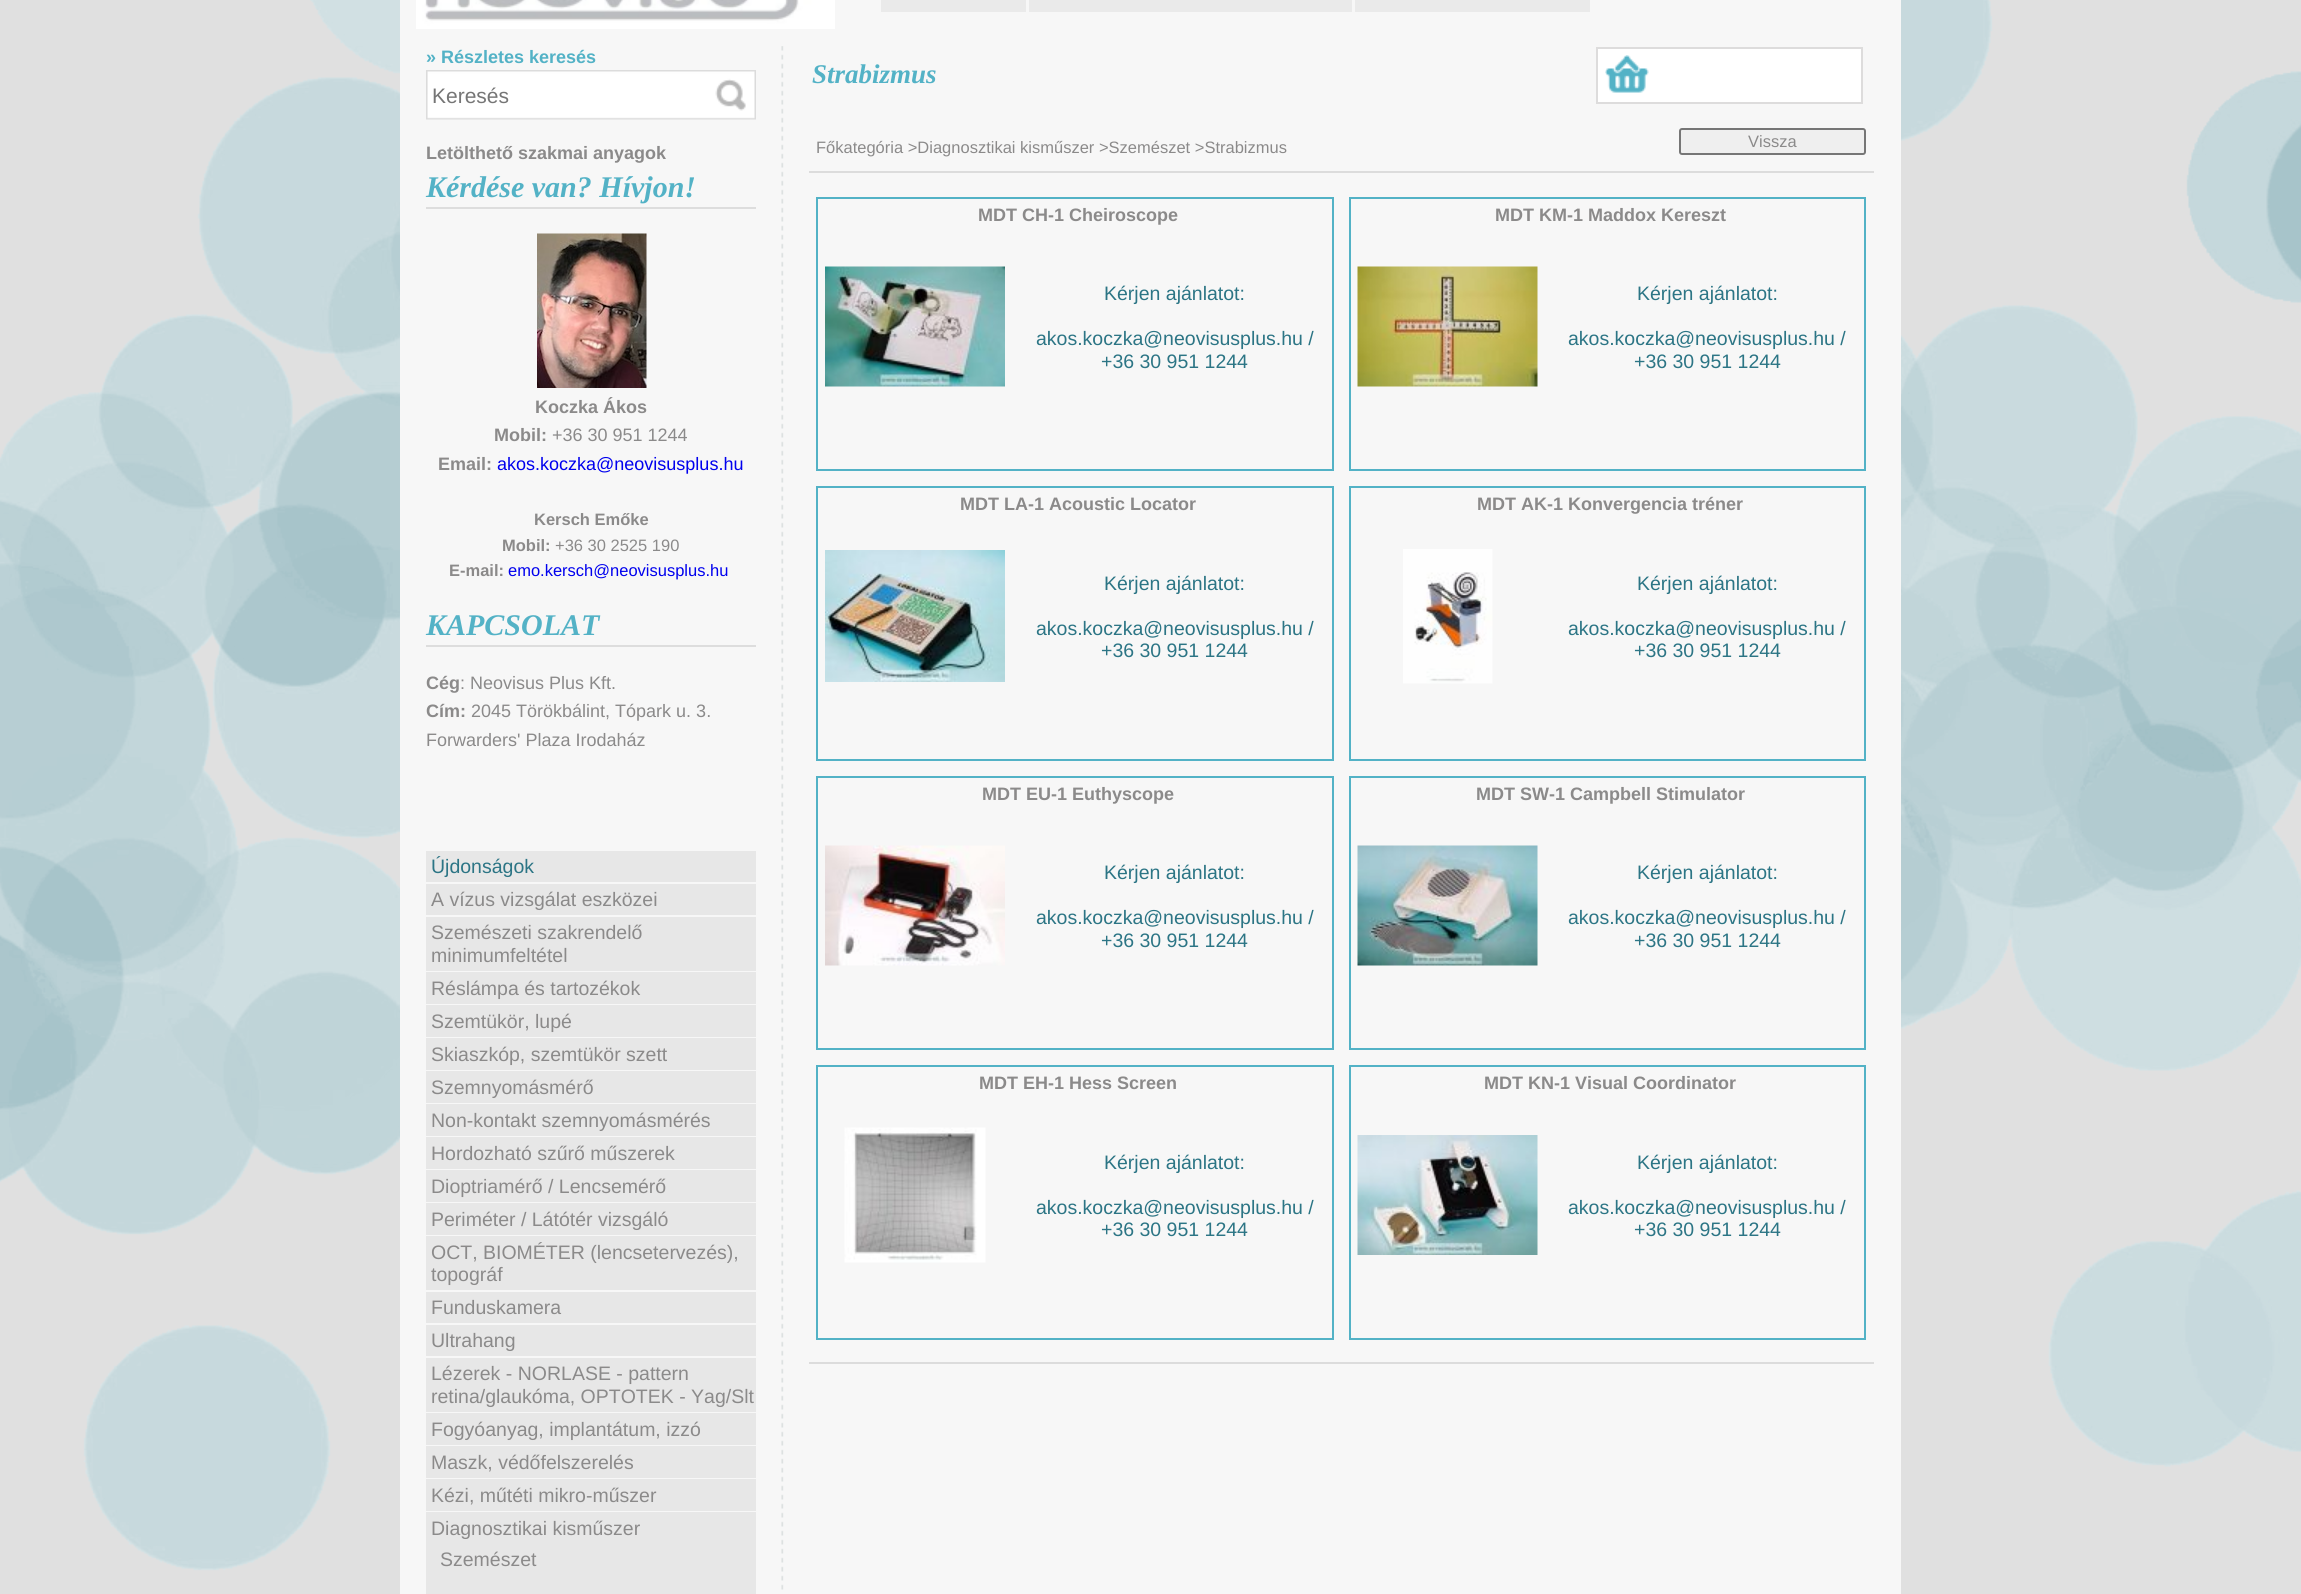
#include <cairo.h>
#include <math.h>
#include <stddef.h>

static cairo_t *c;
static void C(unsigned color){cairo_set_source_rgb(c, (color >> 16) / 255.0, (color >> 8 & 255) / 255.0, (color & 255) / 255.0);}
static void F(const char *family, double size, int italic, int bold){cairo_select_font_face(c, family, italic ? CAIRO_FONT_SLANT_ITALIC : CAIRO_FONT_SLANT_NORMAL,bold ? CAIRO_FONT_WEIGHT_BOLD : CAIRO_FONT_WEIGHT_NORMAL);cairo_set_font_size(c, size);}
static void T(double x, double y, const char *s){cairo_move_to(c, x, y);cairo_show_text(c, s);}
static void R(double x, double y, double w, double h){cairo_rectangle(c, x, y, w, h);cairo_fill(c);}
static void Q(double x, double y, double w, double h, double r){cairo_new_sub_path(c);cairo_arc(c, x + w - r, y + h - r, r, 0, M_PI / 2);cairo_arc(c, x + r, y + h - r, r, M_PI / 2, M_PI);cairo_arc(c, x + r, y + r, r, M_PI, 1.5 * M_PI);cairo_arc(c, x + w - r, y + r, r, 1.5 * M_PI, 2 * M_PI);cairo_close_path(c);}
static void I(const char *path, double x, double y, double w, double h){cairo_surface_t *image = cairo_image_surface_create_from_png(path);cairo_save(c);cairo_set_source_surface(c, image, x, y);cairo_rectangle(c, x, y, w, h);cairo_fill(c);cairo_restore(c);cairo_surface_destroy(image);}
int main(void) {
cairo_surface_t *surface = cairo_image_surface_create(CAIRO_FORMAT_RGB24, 2301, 1594);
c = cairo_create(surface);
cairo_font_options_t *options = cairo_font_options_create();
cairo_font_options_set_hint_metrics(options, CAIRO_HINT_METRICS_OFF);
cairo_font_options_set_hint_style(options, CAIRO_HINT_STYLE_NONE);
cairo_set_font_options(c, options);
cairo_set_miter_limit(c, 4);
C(0xffffff);
cairo_paint(c);
I("1.png",0,1461,2301,133);
I("2.png",0,0,2301,1461);
C(0xf7f7f7);
R(400,0,1501,1594);
I("3.png",416,0,419,29);
C(0xeaeaea);
R(881,0,145,12);
R(1029,0,323,12);
R(1355,0,235,12);
I("4.png",781,46,3,1544);
F("Liberation Sans",18,0,1);
C(0x53b2c6);
T(426,63,"» Részletes keresés");
I("5.png",426,70,330,50);
F("Liberation Sans",21,0,0);
C(0x757575);
T(432,103,"Keresés");
F("Liberation Sans",18,0,1);
C(0x8b8a8a);
T(426,159,"Letölthető szakmai anyagok");
C(0xdddddd);
R(426,207,330,2);
F("Liberation Serif",30,1,1);
C(0x53b2c6);
T(426,197,"Kérdése van? Hívjon!");
I("6.png",537,233,110,155);
F("Liberation Sans",18,0,1);
C(0x8b8a8a);
T(535,413,"Koczka Ákos");
T(494,441,"Mobil:");
F("Liberation Sans",18,0,0);
T(552,441,"+36 30 951 1244");
F("Liberation Sans",18,0,1);
T(438,470,"Email:");
F("Liberation Sans",18,0,0);
C(0x0000ee);
T(497,470,"akos.koczka@neovisusplus.hu");
F("Liberation Sans",16.5,0,1);
C(0x8b8a8a);
T(534,525,"Kersch Emőke");
T(502,551,"Mobil:");
F("Liberation Sans",16.5,0,0);
T(555,551,"+36 30 2525 190");
F("Liberation Sans",16.5,0,1);
T(449,576,"E-mail:");
F("Liberation Sans",16.5,0,0);
C(0x0000ee);
T(508,576,"emo.kersch@neovisusplus.hu");
C(0xdddddd);
R(426,645,330,2);
F("Liberation Serif",30,1,1);
C(0x53b2c6);
T(426,635,"KAPCSOLAT");
F("Liberation Sans",18,0,1);
C(0x8b8a8a);
T(426,689,"Cég");
F("Liberation Sans",18,0,0);
T(460,689,": Neovisus Plus Kft.");
F("Liberation Sans",18,0,1);
T(426,717,"Cím:");
F("Liberation Sans",18,0,0);
T(471,717,"2045 Törökbálint, Tópark u. 3.");
T(426,746,"Forwarders' Plaza Irodaház");
C(0xe7e7e7);
R(426,851,330,31);
F("Liberation Sans",19.5,0,0);
C(0x2c7585);
T(431,873,"Újdonságok");
C(0xe7e7e7);
R(426,884,330,31);
C(0x8b8a8a);
T(431,906,"A vízus vizsgálat eszközei");
C(0xe7e7e7);
R(426,917,330,54);
C(0x8b8a8a);
T(431,939,"Szemészeti szakrendelő");
T(431,962,"minimumfeltétel");
C(0xe7e7e7);
R(426,972,330,32);
C(0x8b8a8a);
T(431,995,"Réslámpa és tartozékok");
C(0xe7e7e7);
R(426,1005,330,32);
C(0x8b8a8a);
T(431,1028,"Szemtükör, lupé");
C(0xe7e7e7);
R(426,1038,330,32);
C(0x8b8a8a);
T(431,1061,"Skiaszkóp, szemtükör szett");
C(0xe7e7e7);
R(426,1071,330,32);
C(0x8b8a8a);
T(431,1094,"Szemnyomásmérő");
C(0xe7e7e7);
R(426,1104,330,32);
C(0x8b8a8a);
T(431,1127,"Non-kontakt szemnyomásmérés");
C(0xe7e7e7);
R(426,1137,330,32);
C(0x8b8a8a);
T(431,1160,"Hordozható szűrő műszerek");
C(0xe7e7e7);
R(426,1170,330,32);
C(0x8b8a8a);
T(431,1193,"Dioptriamérő / Lencsemérő");
C(0xe7e7e7);
R(426,1203,330,32);
C(0x8b8a8a);
T(431,1226,"Periméter / Látótér vizsgáló");
C(0xe7e7e7);
R(426,1236,330,54);
C(0x8b8a8a);
T(431,1259,"OCT, BIOMÉTER (lencsetervezés),");
T(431,1281,"topográf");
C(0xe7e7e7);
R(426,1292,330,31);
C(0x8b8a8a);
T(431,1314,"Funduskamera");
C(0xe7e7e7);
R(426,1325,330,31);
C(0x8b8a8a);
T(431,1347,"Ultrahang");
C(0xe7e7e7);
R(426,1358,330,54);
C(0x8b8a8a);
T(431,1380,"Lézerek - NORLASE - pattern");
T(431,1403,"retina/glaukóma, OPTOTEK - Yag/Slt");
C(0xe7e7e7);
R(426,1413,330,32);
C(0x8b8a8a);
T(431,1436,"Fogyóanyag, implantátum, izzó");
C(0xe7e7e7);
R(426,1446,330,32);
C(0x8b8a8a);
T(431,1469,"Maszk, védőfelszerelés");
C(0xe7e7e7);
R(426,1479,330,32);
C(0x8b8a8a);
T(431,1502,"Kézi, műtéti mikro-műszer");
C(0xe7e7e7);
R(426,1512,330,82);
C(0x8b8a8a);
T(431,1535,"Diagnosztikai kisműszer");
T(440,1566,"Szemészet");
F("Liberation Serif",27,1,1);
C(0x53b2c6);
T(812,83,"Strabizmus");
C(0xffffff);
cairo_rectangle(c,1597,48,265,55);
cairo_fill_preserve(c);
C(0xdddcdc);
cairo_stroke(c);
I("7.png",1605,55,44,38);
F("Liberation Sans",16.5,0,0);
C(0x8b8a8a);
T(816,153,"Főkategória >Diagnosztikai kisműszer >Szemészet >Strabizmus");
C(0xefefef);
Q(1680,129,185,25,2);
cairo_fill_preserve(c);
C(0x767676);
cairo_stroke(c);
C(0x8b8a8a);
T(1748,147,"Vissza");
C(0xdcdcdc);
R(809,171,1065,2);
cairo_rectangle(c,817,198,516,272);
C(0x53b2c6);
cairo_stroke(c);
F("Liberation Sans",18,0,1);
C(0x8b8a8a);
T(978,221,"MDT CH-1 Cheiroscope");
I("8.png",825,266,180,121);
F("Liberation Sans",19.5,0,0);
C(0x2c7585);
T(1104,300,"Kérjen ajánlatot:");
T(1036,345,"akos.koczka@neovisusplus.hu /");
T(1101,368,"+36 30 951 1244");
cairo_rectangle(c,1350,198,515,272);
C(0x53b2c6);
cairo_stroke(c);
F("Liberation Sans",18,0,1);
C(0x8b8a8a);
T(1495,221,"MDT KM-1 Maddox Kereszt");
I("9.png",1357,266,181,121);
F("Liberation Sans",19.5,0,0);
C(0x2c7585);
T(1637,300,"Kérjen ajánlatot:");
T(1568,345,"akos.koczka@neovisusplus.hu /");
T(1634,368,"+36 30 951 1244");
cairo_rectangle(c,817,487,516,273);
C(0x53b2c6);
cairo_stroke(c);
F("Liberation Sans",18,0,1);
C(0x8b8a8a);
T(960,510,"MDT LA-1 Acoustic Locator");
I("10.png",825,550,180,132);
F("Liberation Sans",19.5,0,0);
C(0x2c7585);
T(1104,590,"Kérjen ajánlatot:");
T(1036,635,"akos.koczka@neovisusplus.hu /");
T(1101,657,"+36 30 951 1244");
cairo_rectangle(c,1350,487,515,273);
C(0x53b2c6);
cairo_stroke(c);
F("Liberation Sans",18,0,1);
C(0x8b8a8a);
T(1477,510,"MDT AK-1 Konvergencia tréner");
I("11.png",1403,549,90,135);
F("Liberation Sans",19.5,0,0);
C(0x2c7585);
T(1637,590,"Kérjen ajánlatot:");
T(1568,635,"akos.koczka@neovisusplus.hu /");
T(1634,657,"+36 30 951 1244");
cairo_rectangle(c,817,777,516,272);
C(0x53b2c6);
cairo_stroke(c);
F("Liberation Sans",18,0,1);
C(0x8b8a8a);
T(982,800,"MDT EU-1 Euthyscope");
I("12.png",825,845,180,121);
F("Liberation Sans",19.5,0,0);
C(0x2c7585);
T(1104,879,"Kérjen ajánlatot:");
T(1036,924,"akos.koczka@neovisusplus.hu /");
T(1101,947,"+36 30 951 1244");
cairo_rectangle(c,1350,777,515,272);
C(0x53b2c6);
cairo_stroke(c);
F("Liberation Sans",18,0,1);
C(0x8b8a8a);
T(1476,800,"MDT SW-1 Campbell Stimulator");
I("13.png",1357,845,181,121);
F("Liberation Sans",19.5,0,0);
C(0x2c7585);
T(1637,879,"Kérjen ajánlatot:");
T(1568,924,"akos.koczka@neovisusplus.hu /");
T(1634,947,"+36 30 951 1244");
cairo_rectangle(c,817,1066,516,273);
C(0x53b2c6);
cairo_stroke(c);
F("Liberation Sans",18,0,1);
C(0x8b8a8a);
T(979,1089,"MDT EH-1 Hess Screen");
I("14.png",844,1127,142,136);
F("Liberation Sans",19.5,0,0);
C(0x2c7585);
T(1104,1169,"Kérjen ajánlatot:");
T(1036,1214,"akos.koczka@neovisusplus.hu /");
T(1101,1236,"+36 30 951 1244");
cairo_rectangle(c,1350,1066,515,273);
C(0x53b2c6);
cairo_stroke(c);
F("Liberation Sans",18,0,1);
C(0x8b8a8a);
T(1484,1089,"MDT KN-1 Visual Coordinator");
I("15.png",1357,1135,181,120);
F("Liberation Sans",19.5,0,0);
C(0x2c7585);
T(1637,1169,"Kérjen ajánlatot:");
T(1568,1214,"akos.koczka@neovisusplus.hu /");
T(1634,1236,"+36 30 951 1244");
C(0xdcdcdc);
R(809,1362,1065,2);
cairo_surface_write_to_png(surface, "o.png");
cairo_font_options_destroy(options);
cairo_destroy(c);
cairo_surface_destroy(surface);
return 0;
}
